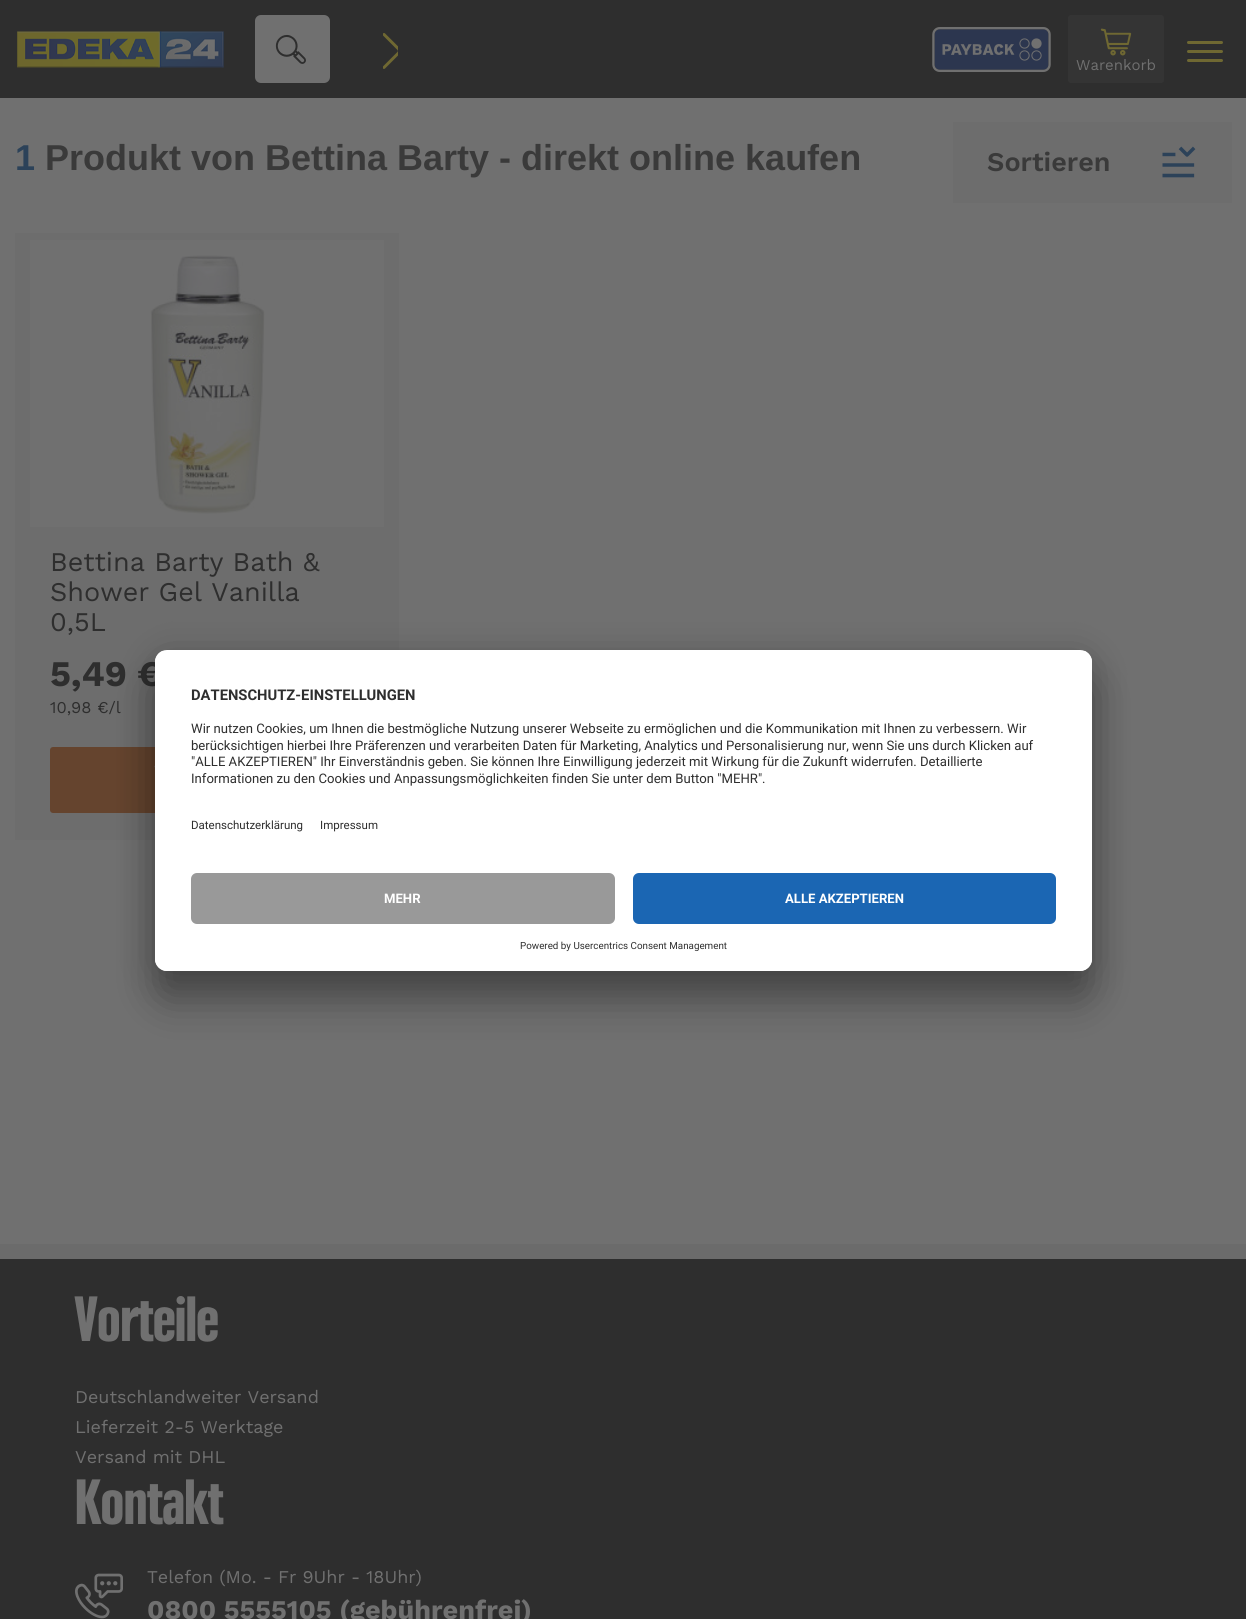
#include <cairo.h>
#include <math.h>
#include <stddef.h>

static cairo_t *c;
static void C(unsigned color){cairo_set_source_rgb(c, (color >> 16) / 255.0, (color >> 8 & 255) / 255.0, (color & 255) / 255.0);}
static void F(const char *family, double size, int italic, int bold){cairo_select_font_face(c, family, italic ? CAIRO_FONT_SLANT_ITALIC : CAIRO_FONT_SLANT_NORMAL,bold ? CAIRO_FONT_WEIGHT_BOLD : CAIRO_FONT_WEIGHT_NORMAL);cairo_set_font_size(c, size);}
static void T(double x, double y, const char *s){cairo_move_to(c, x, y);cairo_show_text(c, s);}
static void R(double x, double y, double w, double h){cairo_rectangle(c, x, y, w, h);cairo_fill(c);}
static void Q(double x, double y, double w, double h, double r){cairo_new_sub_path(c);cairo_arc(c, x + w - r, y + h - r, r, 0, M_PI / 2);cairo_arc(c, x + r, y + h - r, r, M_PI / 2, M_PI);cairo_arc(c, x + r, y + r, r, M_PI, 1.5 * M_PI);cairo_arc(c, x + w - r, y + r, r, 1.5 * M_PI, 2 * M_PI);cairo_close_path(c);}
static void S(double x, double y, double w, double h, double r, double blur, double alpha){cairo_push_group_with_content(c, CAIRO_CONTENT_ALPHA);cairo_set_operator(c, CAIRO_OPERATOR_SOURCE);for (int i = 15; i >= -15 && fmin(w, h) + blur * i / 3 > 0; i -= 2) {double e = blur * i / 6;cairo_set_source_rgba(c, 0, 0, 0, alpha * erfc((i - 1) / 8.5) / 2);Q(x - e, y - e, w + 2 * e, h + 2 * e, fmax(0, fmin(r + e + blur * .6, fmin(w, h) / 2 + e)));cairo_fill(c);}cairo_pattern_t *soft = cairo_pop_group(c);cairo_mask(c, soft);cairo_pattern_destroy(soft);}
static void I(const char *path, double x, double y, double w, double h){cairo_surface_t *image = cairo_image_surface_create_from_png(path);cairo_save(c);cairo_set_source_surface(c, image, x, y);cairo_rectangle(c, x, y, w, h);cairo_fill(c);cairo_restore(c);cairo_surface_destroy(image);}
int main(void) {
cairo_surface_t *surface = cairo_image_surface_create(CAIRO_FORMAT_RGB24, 1246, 1619);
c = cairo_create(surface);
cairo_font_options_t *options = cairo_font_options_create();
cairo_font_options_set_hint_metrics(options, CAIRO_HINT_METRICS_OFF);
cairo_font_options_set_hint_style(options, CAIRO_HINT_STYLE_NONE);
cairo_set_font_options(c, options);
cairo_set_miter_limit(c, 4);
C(0x707070);
cairo_paint(c);
C(0x2e2e2e);
R(0,0,1246,98);
I("1.png",17,31,207,37);
C(0x707070);
Q(255,15,75,68,6);
cairo_fill(c);
I("2.png",275,34,31,30);
I("3.png",383,33,15,36);
I("4.png",932,27,119,45);
C(0x6f6832);
Q(1187,41,36,3,1.5);
cairo_fill(c);
Q(1187,50,36,3,1.5);
cairo_fill(c);
Q(1187,59,36,3,1.5);
cairo_fill(c);
C(0x343434);
Q(1068,15,96,68,3);
cairo_fill(c);
I("5.png",1100,28,32,28);
F("Work Sans",15,0,0);
C(0x707070);
T(1076,70,"Warenkorb");
F("Liberation Sans",36,0,1);
C(0x2c4259);
T(15,170,"1");
C(0x3a3a3a);
T(45,170,"Produkt von Bettina Barty - direkt online kaufen");
cairo_rectangle(c,955.5,124.5,274,76);
C(0x6d6d6d);
cairo_set_line_width(c,5);
cairo_stroke(c);
R(958,127,269,71);
F("Work Sans SemiBold",27,0,0);
C(0x3a3a3a);
T(987,171,"Sortieren");
I("6.png",1162,146,34,32);
C(0x6d6d6d);
R(15,233,384,607);
C(0x707070);
R(30,240,354,287);
I("7.png",150,255,115,259);
F("Work Sans",27,0,0);
C(0x2e2e2e);
T(50,571,"Bettina Barty Bath &");
T(50,601,"Shower Gel Vanilla");
T(50,631,"0,5L");
F("Work Sans",36,0,1);
T(50,686,"5,49 €");
F("Work Sans",16.5,0,0);
T(50,713,"10,98 €/l");
C(0x65442e);
Q(50,747,243,66,3);
cairo_fill(c);
I("8.png",154,765,1,3);
C(0x2e2e2e);
R(0,1259,1246,360);
C(0x6b6b6b);
R(0,1244,1246,15);
F("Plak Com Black",63,0,0);
C(0x707070);
T(75,1341,"Vorteile");
F("Work Sans",18,0,0);
T(75,1403,"Deutschlandweiter Versand");
T(75,1433,"Lieferzeit 2-5 Werktage");
T(75,1463,"Versand mit DHL");
F("Plak Com Black",63,0,0);
T(75,1524,"Kontakt");
I("9.png",75,1573,48,46);
F("Work Sans",18,0,0);
T(147,1583,"Telefon (Mo. - Fr 9Uhr - 18Uhr)");
F("Work Sans",27,0,1);
T(147,1619,"0800 5555105 (gebührenfrei)");
C(0x000000);
S(155,680,937,321,12,21,.3);
S(155,657,937,321,12,19.5,.22);
C(0xffffff);
Q(155,650,937,321,12);
cairo_fill(c);
cairo_save(c);
Q(155,650,937,321,12);
cairo_clip(c);
cairo_new_path(c);
cairo_move_to(c,167,650);
cairo_line_to(c,1080,650);
cairo_curve_to(c,1086.5,650,1092,655.5,1092,662);
cairo_line_to(c,1092,861);
cairo_line_to(c,155,861);
cairo_line_to(c,155,662);
cairo_curve_to(c,155,655.5,160.5,650,167,650);
cairo_close_path(c);
cairo_clip(c);
R(155,651,937,210);
cairo_restore(c);
F("Roboto",14.75,0,1);
C(0x2e2e2e);
T(191,700,"DATENSCHUTZ-EINSTELLUNGEN");
F("Roboto",13.12,0,0);
T(191,733,"Wir nutzen Cookies, um Ihnen die bestmögliche Nutzung unserer Webseite zu ermöglichen und die Kommunikation mit Ihnen zu verbessern. Wir");
T(191,750,"berücksichtigen hierbei Ihre Präferenzen und verarbeiten Daten für Marketing, Analytics und Personalisierung nur, wenn Sie uns durch Klicken auf");
T(191,766,"\"ALLE AKZEPTIEREN\" Ihr Einverständnis geben. Sie können Ihre Einwilligung jederzeit mit Wirkung für die Zukunft widerrufen. Detaillierte");
T(191,783,"Informationen zu den Cookies und Anpassungsmöglichkeiten finden Sie unter dem Button \"MEHR\".");
F("Roboto",11.5,0,0);
T(191,829,"Datenschutzerklärung");
T(320,829,"Impressum");
C(0xffffff);
cairo_new_path(c);
cairo_move_to(c,155,861);
cairo_line_to(c,1092,861);
cairo_line_to(c,1092,959);
cairo_curve_to(c,1092,965.5,1086.5,971,1080,971);
cairo_line_to(c,167,971);
cairo_curve_to(c,160.5,971,155,965.5,155,959);
cairo_close_path(c);
cairo_fill(c);
C(0x999999);
Q(191,873,424,51,6);
cairo_fill(c);
F("Roboto",13.12,0,1);
C(0xffffff);
T(384,903,"MEHR");
C(0x1b66b3);
Q(633,873,423,51,6);
cairo_fill(c);
C(0xffffff);
T(785,903,"ALLE AKZEPTIEREN");
F("Roboto",9.8,0,0);
C(0x2e2e2e);
T(520,949,"Powered by Usercentrics Consent Management");
cairo_surface_write_to_png(surface, "o.png");
cairo_font_options_destroy(options);
cairo_destroy(c);
cairo_surface_destroy(surface);
return 0;
}
